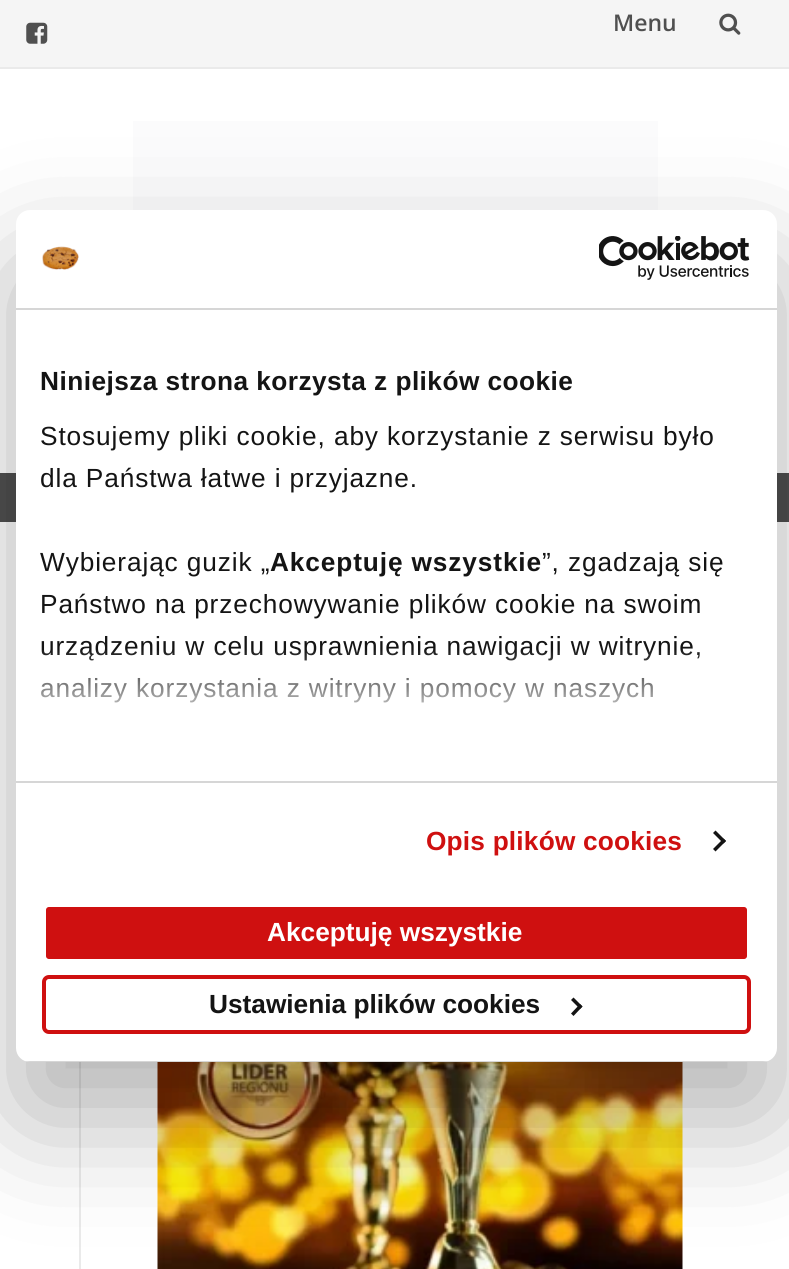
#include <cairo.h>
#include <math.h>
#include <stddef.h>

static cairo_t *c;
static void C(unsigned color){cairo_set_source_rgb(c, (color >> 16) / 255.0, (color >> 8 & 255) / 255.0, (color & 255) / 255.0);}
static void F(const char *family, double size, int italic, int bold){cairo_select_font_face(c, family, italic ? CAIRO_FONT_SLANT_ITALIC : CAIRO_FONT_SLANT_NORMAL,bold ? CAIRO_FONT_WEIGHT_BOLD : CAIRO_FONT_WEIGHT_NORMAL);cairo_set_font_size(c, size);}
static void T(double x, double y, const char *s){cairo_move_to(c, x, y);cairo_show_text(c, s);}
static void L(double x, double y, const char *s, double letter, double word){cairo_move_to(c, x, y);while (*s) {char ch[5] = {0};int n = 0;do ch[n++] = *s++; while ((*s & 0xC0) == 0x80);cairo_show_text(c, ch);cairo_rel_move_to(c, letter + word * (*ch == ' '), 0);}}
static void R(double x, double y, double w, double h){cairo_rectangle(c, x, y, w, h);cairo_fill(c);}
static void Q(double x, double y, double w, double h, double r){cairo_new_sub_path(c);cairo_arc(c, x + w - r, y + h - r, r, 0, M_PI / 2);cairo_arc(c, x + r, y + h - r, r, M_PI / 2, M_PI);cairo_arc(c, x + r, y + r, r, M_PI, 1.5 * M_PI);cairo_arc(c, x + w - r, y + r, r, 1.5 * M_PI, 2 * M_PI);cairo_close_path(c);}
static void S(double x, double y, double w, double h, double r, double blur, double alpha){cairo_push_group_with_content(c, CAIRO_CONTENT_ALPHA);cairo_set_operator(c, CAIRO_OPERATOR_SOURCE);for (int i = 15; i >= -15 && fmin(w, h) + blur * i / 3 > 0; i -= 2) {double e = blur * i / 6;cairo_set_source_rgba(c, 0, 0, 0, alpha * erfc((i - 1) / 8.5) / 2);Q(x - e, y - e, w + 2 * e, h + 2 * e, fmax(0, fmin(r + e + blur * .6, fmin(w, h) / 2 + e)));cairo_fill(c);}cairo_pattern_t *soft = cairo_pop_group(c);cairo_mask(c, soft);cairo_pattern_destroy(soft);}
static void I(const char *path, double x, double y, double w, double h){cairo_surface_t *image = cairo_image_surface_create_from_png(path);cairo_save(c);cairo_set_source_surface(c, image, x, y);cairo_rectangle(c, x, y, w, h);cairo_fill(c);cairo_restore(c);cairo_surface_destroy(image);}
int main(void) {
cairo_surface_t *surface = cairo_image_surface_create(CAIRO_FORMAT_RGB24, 789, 1269);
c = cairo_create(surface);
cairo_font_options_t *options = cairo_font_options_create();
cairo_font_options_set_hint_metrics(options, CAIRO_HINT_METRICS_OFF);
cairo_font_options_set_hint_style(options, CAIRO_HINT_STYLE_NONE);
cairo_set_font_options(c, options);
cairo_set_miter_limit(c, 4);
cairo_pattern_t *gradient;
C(0xffffff);
cairo_paint(c);
C(0xf5f5f5);
R(0,0,789,67);
C(0xeaeaea);
R(0,67,789,2);
I("1.png",26,22,22,22);
F("Open Sans SemiBold",23,0,0);
C(0x505050);
T(613,31,"Menu");
I("2.png",719,13,22,22);
C(0xfbfbfc);
R(133,121,525,89);
C(0x505050);
R(0,473,789,49);
C(0xeaeaea);
R(79,1062,2,207);
I("3.png",157,1062,526,207);
C(0x000000);
S(16,266,761,852,14,59.5,.3);
C(0xffffff);
Q(16,210,761,852,14);
cairo_fill(c);
C(0xd6d6d6);
R(16,308,761,2);
I("4.png",42,246,37,24);
I("5.png",599,236,151,44);
R(16,781,761,2);
F("Liberation Sans",26.25,0,1);
C(0x141414);
L(40,390,"Niniejsza strona korzysta z plików cookie",.45,0);
F("Liberation Sans",26.25,0,0);
L(40,445,"Stosujemy pliki cookie, aby korzystanie z serwisu było",.88,0);
L(40,487,"dla Państwa łatwe i przyjazne.",.88,0);
L(40,571,"Wybierając guzik „",.88,0);
F("Liberation Sans",26.25,0,1);
L(270,571,"Akceptuję wszystkie",.88,0);
F("Liberation Sans",26.25,0,0);
L(542,571,"”, zgadzają się",.88,0);
L(40,613,"Państwo na przechowywanie plików cookie na swoim",.88,0);
L(40,655,"urządzeniu w celu usprawnienia nawigacji w witrynie,",.88,0);
L(40,697,"analizy korzystania z witryny i pomocy w naszych",.88,0);
gradient = cairo_pattern_create_linear(384,780,384,648);
cairo_pattern_add_color_stop_rgba(gradient,0,1,1,1,1);
cairo_pattern_add_color_stop_rgba(gradient,.5,1,1,1,.8);
cairo_pattern_add_color_stop_rgba(gradient,1,1,1,1,0);
cairo_set_source(c,gradient);
cairo_pattern_destroy(gradient);
R(41,650,659,53);
F("Liberation Sans",26.25,0,1);
C(0xcf1010);
L(426,850,"Opis plików cookies",.2,0);
C(0x141414);
cairo_new_path(c);
cairo_move_to(c,715.5,830.5);
cairo_line_to(c,726,841);
cairo_line_to(c,723.5,843.5);
cairo_line_to(c,713,833);
cairo_close_path(c);
cairo_fill(c);
cairo_new_path(c);
cairo_move_to(c,723.5,838.5);
cairo_line_to(c,726,841);
cairo_line_to(c,715.5,851.5);
cairo_line_to(c,713,849);
cairo_close_path(c);
cairo_fill(c);
cairo_save(c);
Q(16,210,761,852,14);
cairo_clip(c);
C(0xd6d6d6);
R(25,1061,743,1);
cairo_restore(c);
C(0xcf1010);
Q(44,905,705,56,5);
cairo_fill_preserve(c);
C(0xffffff);
cairo_set_line_width(c,4);
cairo_stroke(c);
T(267,941,"Akceptuję wszystkie");
Q(44,977,705,55,5);
C(0xcf1010);
cairo_stroke(c);
C(0x141414);
T(209,1013,"Ustawienia plików cookies");
cairo_new_path(c);
cairo_move_to(c,573.5,997.5);
cairo_line_to(c,582.5,1006.5);
cairo_line_to(c,580,1009);
cairo_line_to(c,571,1000);
cairo_close_path(c);
cairo_fill(c);
cairo_new_path(c);
cairo_move_to(c,580,1004);
cairo_line_to(c,582.5,1006.5);
cairo_line_to(c,573.5,1016);
cairo_line_to(c,571,1013.5);
cairo_close_path(c);
cairo_fill(c);
cairo_surface_write_to_png(surface, "o.png");
cairo_font_options_destroy(options);
cairo_destroy(c);
cairo_surface_destroy(surface);
return 0;
}
